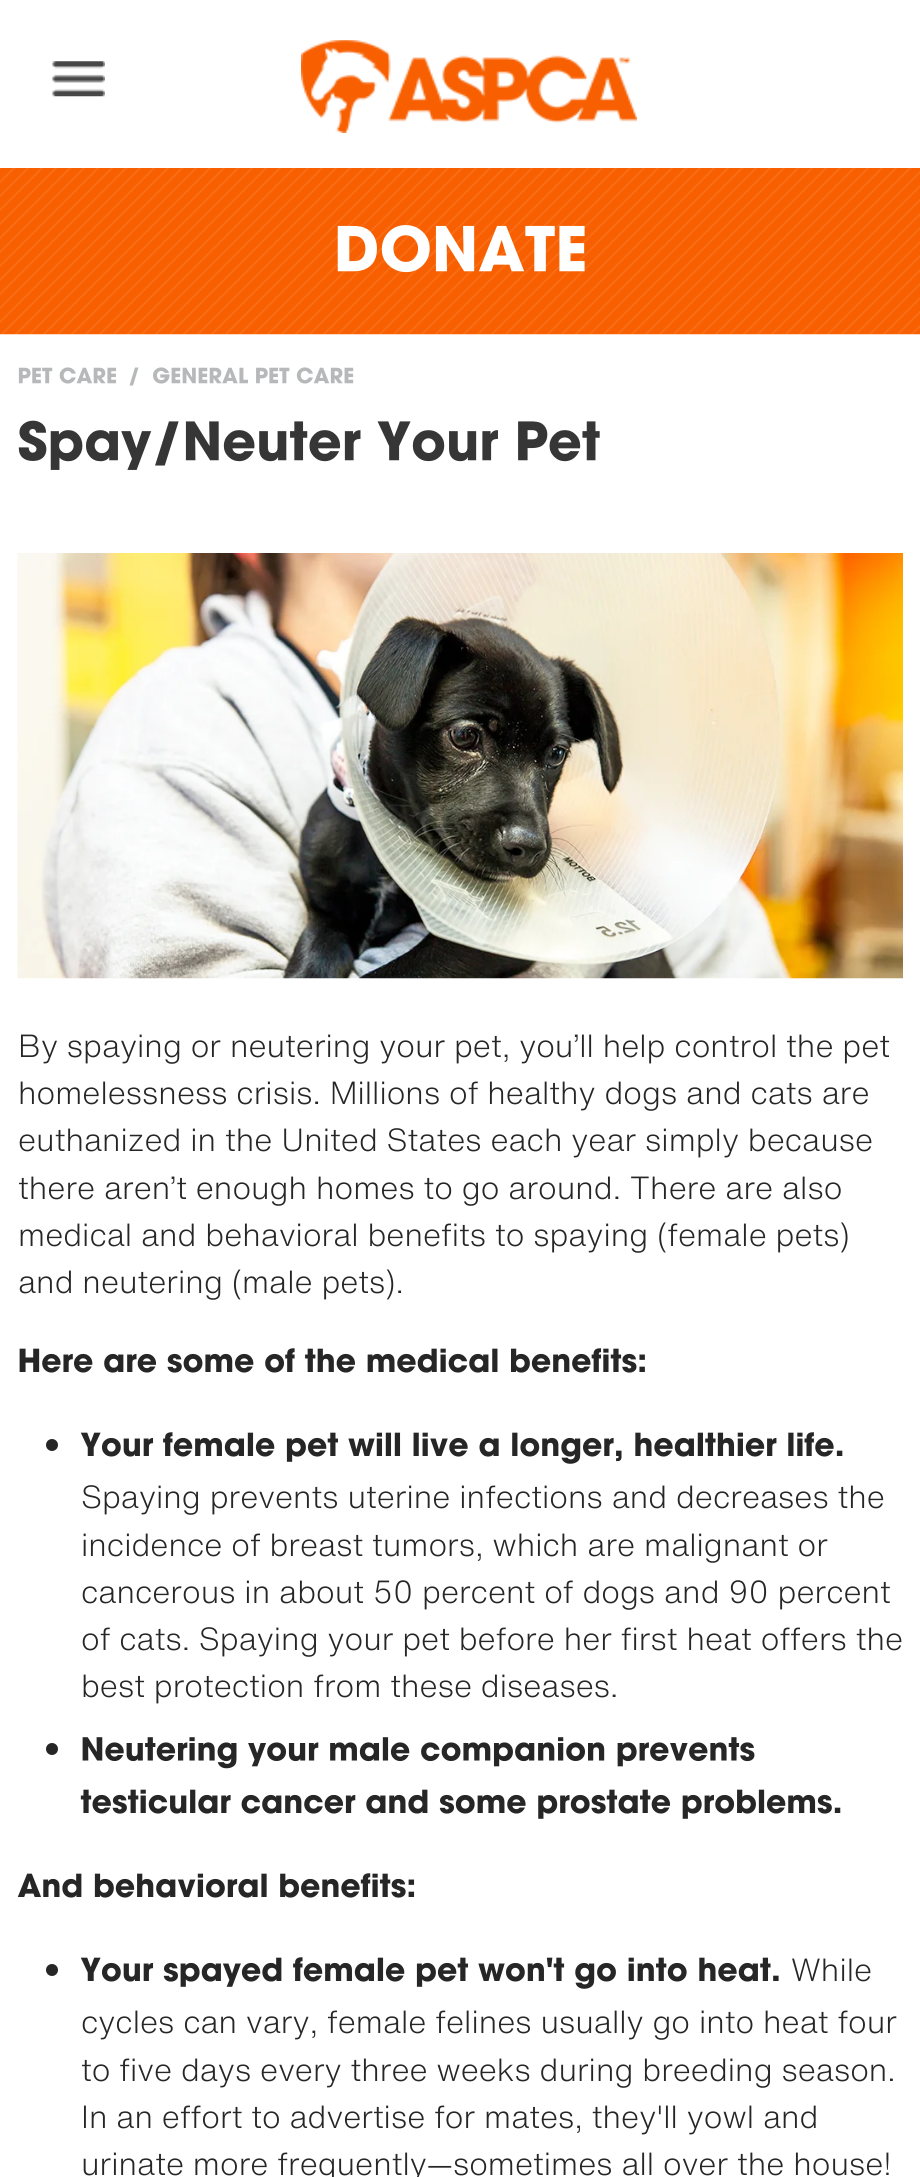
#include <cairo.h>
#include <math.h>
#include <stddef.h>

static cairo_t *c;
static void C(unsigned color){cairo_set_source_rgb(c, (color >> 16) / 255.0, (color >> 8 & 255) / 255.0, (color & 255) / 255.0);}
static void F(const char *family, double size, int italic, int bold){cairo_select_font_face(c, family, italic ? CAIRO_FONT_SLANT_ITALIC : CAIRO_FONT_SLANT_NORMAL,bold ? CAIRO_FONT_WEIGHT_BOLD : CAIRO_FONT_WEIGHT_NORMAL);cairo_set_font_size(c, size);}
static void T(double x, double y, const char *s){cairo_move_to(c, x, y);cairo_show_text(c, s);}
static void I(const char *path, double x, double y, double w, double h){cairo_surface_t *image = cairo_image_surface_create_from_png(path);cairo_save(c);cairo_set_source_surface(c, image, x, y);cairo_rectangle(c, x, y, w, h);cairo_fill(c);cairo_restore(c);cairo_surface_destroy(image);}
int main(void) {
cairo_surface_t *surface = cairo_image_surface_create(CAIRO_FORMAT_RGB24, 920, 2177);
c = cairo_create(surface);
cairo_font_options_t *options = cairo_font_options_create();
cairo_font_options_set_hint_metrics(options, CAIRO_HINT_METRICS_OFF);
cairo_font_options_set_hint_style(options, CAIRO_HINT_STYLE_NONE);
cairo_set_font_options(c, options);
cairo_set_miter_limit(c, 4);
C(0xffffff);
cairo_paint(c);
I("1.png",52,61,53,36);
I("2.png",301,40,336,93);
I("3.png",0,168,920,167);
I("4.png",337,225,248,48);
I("5.png",18,367,99,17);
C(0xb6b8ba);
cairo_new_path(c);
cairo_move_to(c,133,385.5);
cairo_line_to(c,129.5,385.5);
cairo_line_to(c,135,367.5);
cairo_line_to(c,138.5,367.5);
cairo_close_path(c);
cairo_fill(c);
I("6.png",153,367,201,17);
I("7.png",18,420,582,50);
I("8.png",17,553,886,426);
F("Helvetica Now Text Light",31.5,0,0);
C(0x272626);
T(18,1057,"By spaying or neutering your pet, you’ll help control the pet");
T(18,1104,"homelessness crisis. Millions of healthy dogs and cats are");
T(18,1151,"euthanized in the United States each year simply because");
T(18,1199,"there aren’t enough homes to go around. There are also");
T(18,1246,"medical and behavioral benefits to spaying (female pets)");
T(18,1293,"and neutering (male pets).");
I("9.png",19,1348,626,25);
cairo_arc(c,52,1445,6,0,2 * M_PI);
cairo_fill(c);
I("10.png",80,1432,763,32);
T(81,1508,"Spaying prevents uterine infections and decreases the");
T(81,1556,"incidence of breast tumors, which are malignant or");
T(81,1603,"cancerous in about 50 percent of dogs and 90 percent");
T(81,1650,"of cats. Spaying your pet before her first heat offers the");
T(81,1697,"best protection from these diseases.");
cairo_new_path(c);
cairo_arc(c,52,1749,6,0,2 * M_PI);
cairo_fill(c);
I("11.png",82,1737,673,32);
I("12.png",80,1789,761,30);
I("13.png",17,1873,398,25);
cairo_arc(c,52,1970,6,0,2 * M_PI);
cairo_fill(c);
I("14.png",80,1957,699,32);
T(791,1981,"While");
T(81,2033,"cycles can vary, female felines usually go into heat four");
T(81,2081,"to five days every three weeks during breeding season.");
T(81,2128,"In an effort to advertise for mates, they'll yowl and");
T(81,2175,"urinate more frequently—sometimes all over the house!");
cairo_surface_write_to_png(surface, "o.png");
cairo_font_options_destroy(options);
cairo_destroy(c);
cairo_surface_destroy(surface);
return 0;
}
